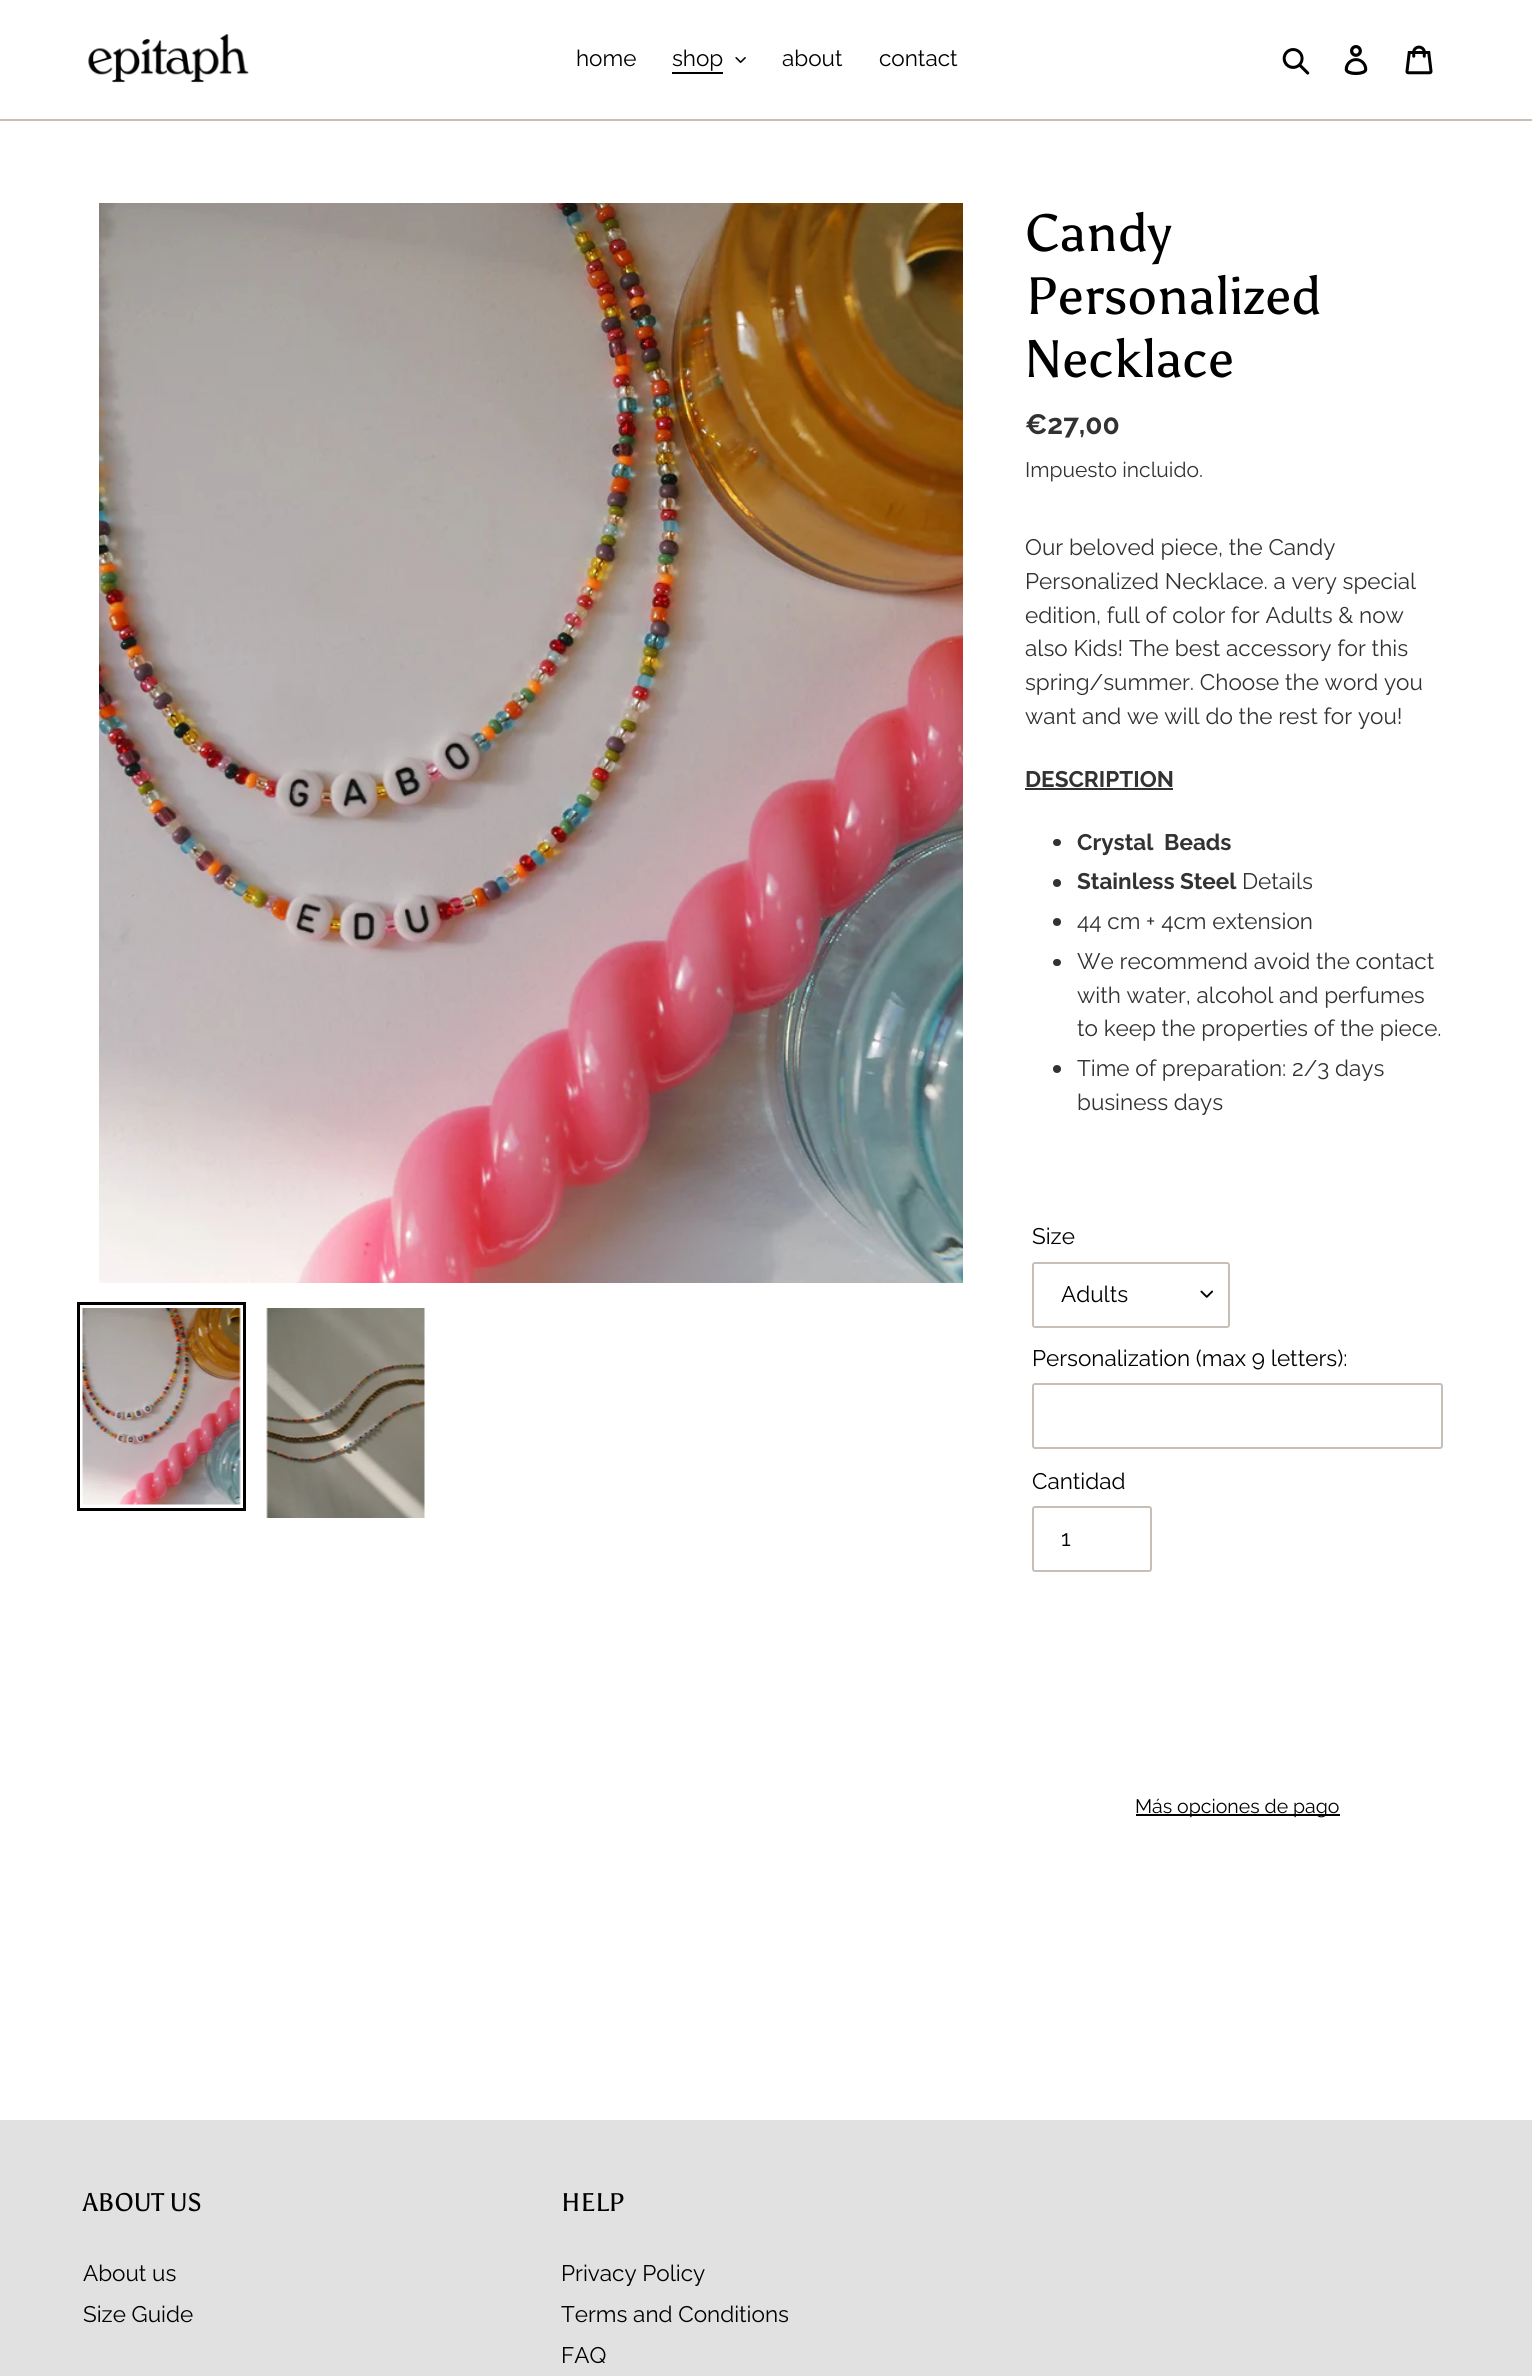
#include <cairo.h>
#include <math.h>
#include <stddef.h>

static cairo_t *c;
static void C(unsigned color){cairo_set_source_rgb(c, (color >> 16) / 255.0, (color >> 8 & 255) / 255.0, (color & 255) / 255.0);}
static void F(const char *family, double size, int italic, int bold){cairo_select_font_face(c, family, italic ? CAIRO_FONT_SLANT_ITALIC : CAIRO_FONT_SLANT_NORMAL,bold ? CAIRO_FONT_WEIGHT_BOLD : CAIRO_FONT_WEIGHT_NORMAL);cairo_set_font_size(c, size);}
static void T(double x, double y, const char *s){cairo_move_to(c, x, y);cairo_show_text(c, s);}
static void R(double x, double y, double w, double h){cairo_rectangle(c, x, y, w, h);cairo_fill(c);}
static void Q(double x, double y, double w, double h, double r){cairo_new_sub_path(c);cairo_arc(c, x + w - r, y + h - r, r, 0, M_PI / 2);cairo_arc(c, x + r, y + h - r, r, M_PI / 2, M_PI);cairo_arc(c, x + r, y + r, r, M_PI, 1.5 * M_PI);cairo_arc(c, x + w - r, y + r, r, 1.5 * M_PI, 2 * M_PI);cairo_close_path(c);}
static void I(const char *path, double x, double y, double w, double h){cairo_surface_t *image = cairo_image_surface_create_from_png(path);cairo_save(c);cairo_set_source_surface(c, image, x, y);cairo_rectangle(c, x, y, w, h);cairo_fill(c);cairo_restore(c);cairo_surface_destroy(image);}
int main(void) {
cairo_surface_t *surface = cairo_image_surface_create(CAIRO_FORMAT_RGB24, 1532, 2376);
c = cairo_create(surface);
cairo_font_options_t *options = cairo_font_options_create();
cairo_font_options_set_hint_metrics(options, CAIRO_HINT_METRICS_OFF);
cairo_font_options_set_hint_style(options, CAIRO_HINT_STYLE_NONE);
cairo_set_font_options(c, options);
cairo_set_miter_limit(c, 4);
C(0xffffff);
cairo_paint(c);
C(0xc7bfb7);
R(0,119,1532,2);
I("1.png",88,34,161,49);
F("Raleway",22.5,0,0);
C(0x000000);
T(576,66,"home");
T(672,66,"shop");
R(672,72,51,2);
I("2.png",735,57,11,6);
T(782,66,"about");
T(879,66,"contact");
I("3.png",1282,48,28,27);
I("4.png",1344,45,24,30);
I("5.png",1405,45,28,30);
I("6.png",99,203,864,1080);
cairo_rectangle(c,78.5,1303.5,166,206);
cairo_set_line_width(c,3);
cairo_stroke(c);
I("7.png",82,1308,159,197);
I("8.png",266,1308,159,210);
F("Asul",52.5,0,0);
T(1025,251,"Candy");
T(1025,314,"Personalized");
T(1025,377,"Necklace");
F("Raleway",28,0,1);
C(0x333232);
T(1025,434,"€27,00");
F("Raleway",21,0,0);
T(1025,477,"Impuesto incluido.");
F("Raleway",22.5,0,0);
T(1025,555,"Our beloved piece, the Candy");
T(1025,589,"Personalized Necklace. a very special");
T(1025,623,"edition, full of color for Adults & now");
T(1025,656,"also Kids! The best accessory for this");
T(1025,690,"spring/summer. Choose the word you");
T(1025,724,"want and we will do the rest for you!");
F("Raleway",22.5,0,1);
T(1025,787,"DESCRIPTION");
R(1025,788,148,2);
Q(1053,839,8,7,3.5);
cairo_fill(c);
T(1077,850,"Crystal  Beads");
cairo_new_path(c);
cairo_arc(c,1057,883,4,0,2 * M_PI);
cairo_fill(c);
T(1077,889,"Stainless Steel");
F("Raleway",22.5,0,0);
T(1242,889,"Details");
cairo_new_path(c);
cairo_arc(c,1057,922,4,0,2 * M_PI);
cairo_fill(c);
T(1077,929,"44 cm + 4cm extension");
Q(1053,959,8,7,3.5);
cairo_fill(c);
T(1077,969,"We recommend avoid the contact");
T(1077,1003,"with water, alcohol and perfumes");
T(1077,1036,"to keep the properties of the piece.");
cairo_new_path(c);
cairo_arc(c,1057,1069,4,0,2 * M_PI);
cairo_fill(c);
T(1077,1076,"Time of preparation: 2/3 days");
T(1077,1110,"business days");
C(0x000000);
T(1032,1244,"Size");
I("9.png",1200,1290,14,8);
Q(1033,1263,196,64,2);
C(0xc7bfb7);
cairo_set_line_width(c,2);
cairo_stroke(c);
C(0x000000);
T(1061,1302,"Adults");
T(1032,1366,"Personalization (max 9 letters):");
Q(1033,1384,409,64,2);
C(0xc7bfb7);
cairo_stroke(c);
C(0x000000);
T(1032,1489,"Cantidad");
Q(1033,1507,118,64,2);
C(0xc7bfb7);
cairo_stroke(c);
C(0x000000);
T(1061,1546,"1");
R(1136,1814,204,2);
F("Raleway",19.5,0,0);
T(1135,1813,"Más opciones de pago");
C(0xe2e1e1);
R(0,2120,1532,256);
F("Asul",25.5,0,0);
C(0x000000);
T(83,2211,"ABOUT US");
F("Raleway",22.5,0,0);
T(83,2281,"About us");
T(83,2322,"Size Guide");
F("Asul",25.5,0,0);
T(561,2211,"HELP");
F("Raleway",22.5,0,0);
T(561,2281,"Privacy Policy");
T(561,2322,"Terms and Conditions");
T(561,2363,"FAQ");
cairo_surface_write_to_png(surface, "o.png");
cairo_font_options_destroy(options);
cairo_destroy(c);
cairo_surface_destroy(surface);
return 0;
}
